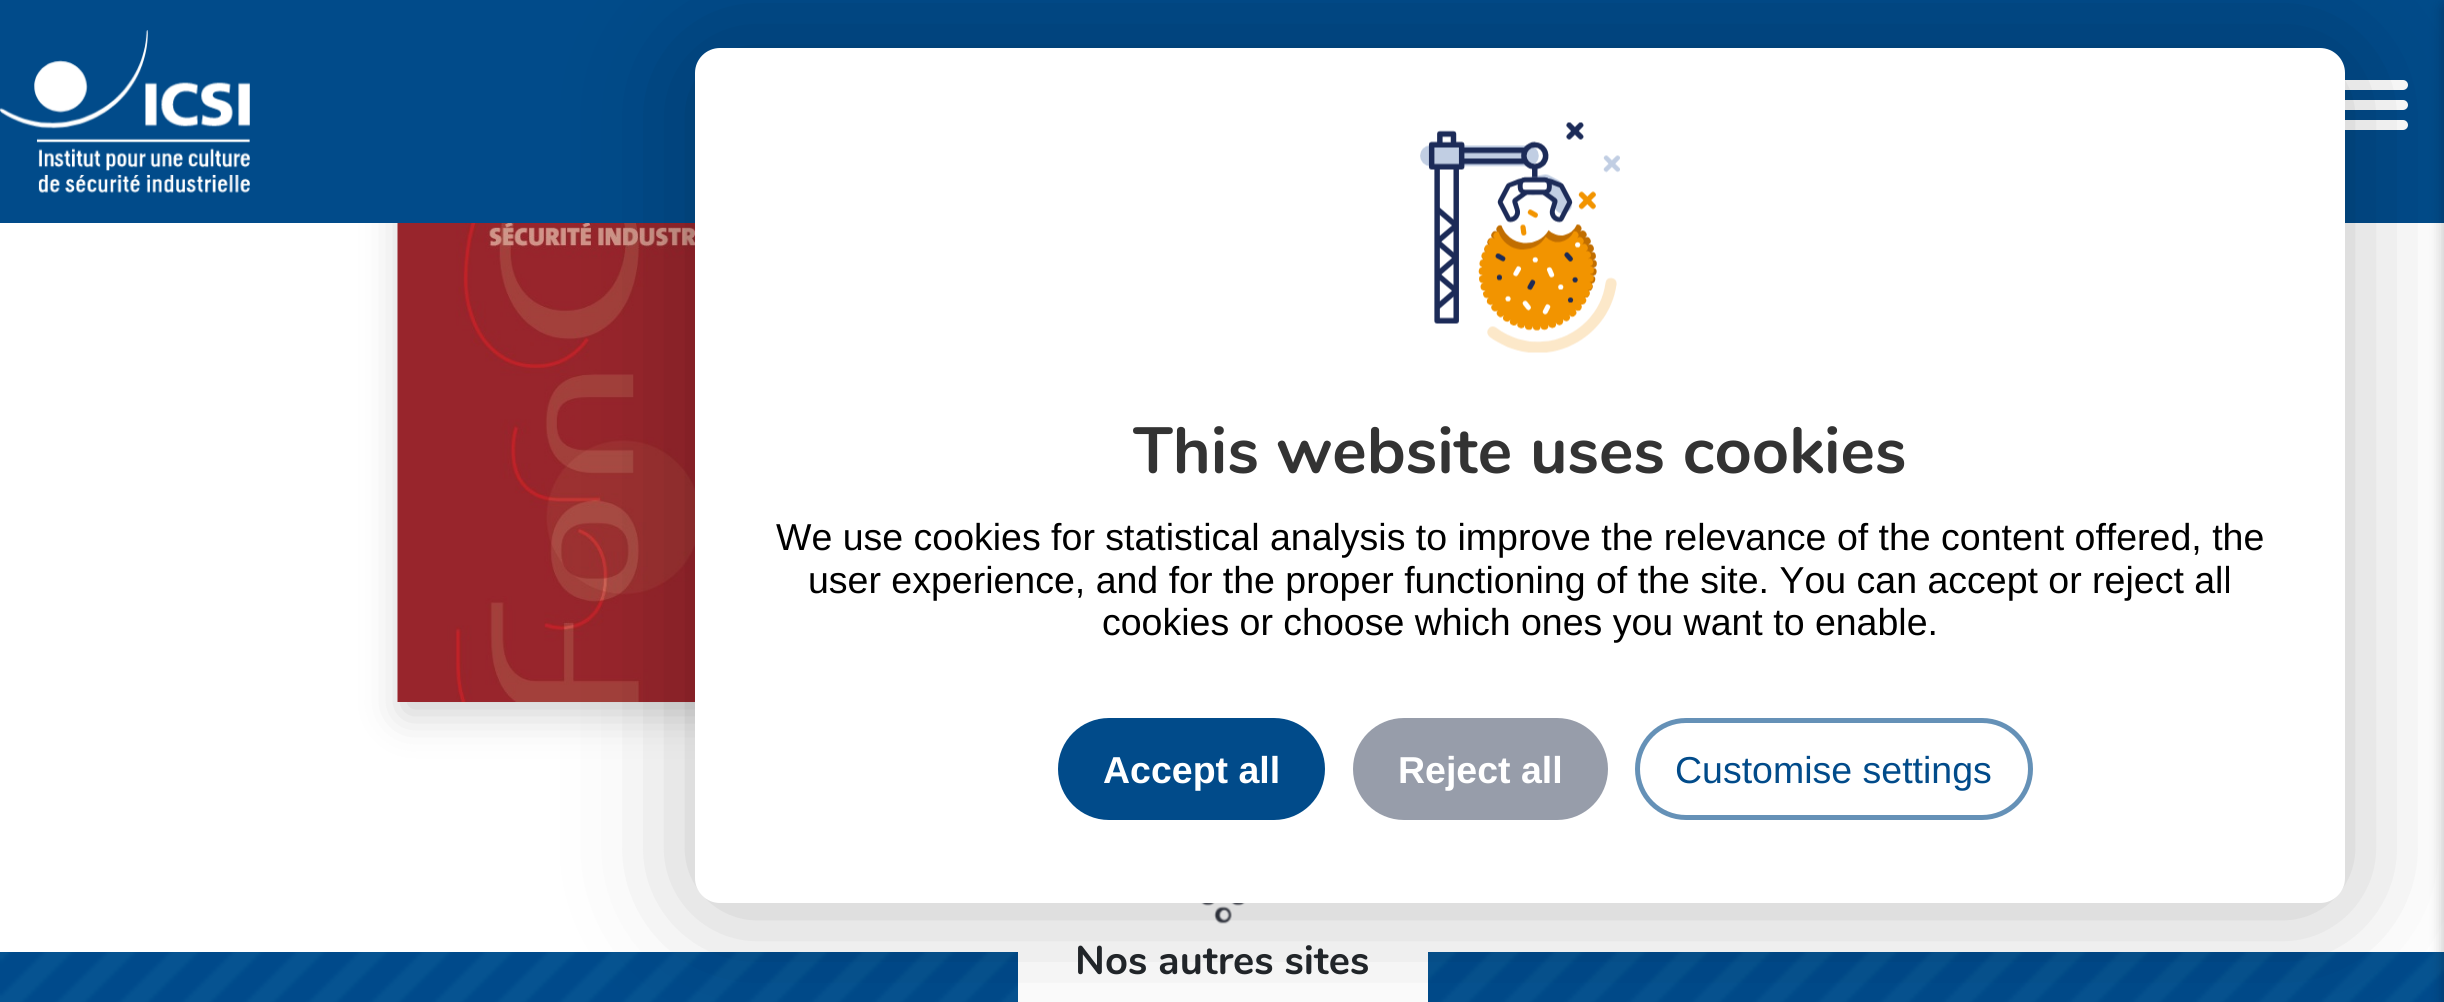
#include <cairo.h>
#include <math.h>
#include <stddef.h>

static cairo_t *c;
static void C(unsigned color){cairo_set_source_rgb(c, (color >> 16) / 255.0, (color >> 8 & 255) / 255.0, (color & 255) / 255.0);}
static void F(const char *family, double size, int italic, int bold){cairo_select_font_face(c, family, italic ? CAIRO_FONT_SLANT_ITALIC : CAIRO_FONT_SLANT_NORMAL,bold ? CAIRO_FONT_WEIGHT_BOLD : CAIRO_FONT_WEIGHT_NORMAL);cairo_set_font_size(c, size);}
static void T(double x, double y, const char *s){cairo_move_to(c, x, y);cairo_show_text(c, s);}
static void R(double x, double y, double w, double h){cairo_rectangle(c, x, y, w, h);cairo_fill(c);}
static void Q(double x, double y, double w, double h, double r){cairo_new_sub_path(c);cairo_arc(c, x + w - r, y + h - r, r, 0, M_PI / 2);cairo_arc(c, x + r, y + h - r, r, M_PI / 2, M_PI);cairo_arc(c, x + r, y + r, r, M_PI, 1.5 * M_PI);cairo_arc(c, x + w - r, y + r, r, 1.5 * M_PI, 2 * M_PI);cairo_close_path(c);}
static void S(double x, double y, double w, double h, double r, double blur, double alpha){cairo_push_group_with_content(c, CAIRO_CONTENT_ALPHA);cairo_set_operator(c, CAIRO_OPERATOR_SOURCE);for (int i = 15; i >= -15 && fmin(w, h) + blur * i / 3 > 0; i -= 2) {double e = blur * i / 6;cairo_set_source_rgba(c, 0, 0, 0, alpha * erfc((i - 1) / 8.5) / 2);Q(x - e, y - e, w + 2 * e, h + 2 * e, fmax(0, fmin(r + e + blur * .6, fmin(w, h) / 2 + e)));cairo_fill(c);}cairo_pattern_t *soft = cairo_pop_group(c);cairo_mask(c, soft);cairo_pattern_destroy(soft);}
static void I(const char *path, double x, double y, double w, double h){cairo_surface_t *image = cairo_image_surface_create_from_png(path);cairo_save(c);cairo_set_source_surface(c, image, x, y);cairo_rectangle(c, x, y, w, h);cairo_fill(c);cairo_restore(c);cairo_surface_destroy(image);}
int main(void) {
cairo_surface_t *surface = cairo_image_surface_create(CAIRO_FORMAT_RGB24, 2444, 1002);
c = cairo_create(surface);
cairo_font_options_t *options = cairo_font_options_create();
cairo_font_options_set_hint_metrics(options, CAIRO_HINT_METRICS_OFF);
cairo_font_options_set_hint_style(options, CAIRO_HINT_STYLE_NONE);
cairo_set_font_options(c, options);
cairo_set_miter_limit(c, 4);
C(0xffffff);
cairo_paint(c);
C(0x000000);
S(403,3,500,710,0,21,.2);
C(0x014b8a);
R(0,0,2444,223);
C(0xffffff);
Q(2333,100,75,10,5);
cairo_fill(c);
Q(2333,80,75,10,5);
cairo_fill(c);
Q(2333,120,75,10,5);
cairo_fill(c);
I("3.png",397,223,298,479);
I("5.png",0,952,2444,50);
R(1018,952,410,50);
I("4.png",1199,903,49,21);
C(0x000000);
S(695,55,1650,855,25,62.5,.25);
C(0xffffff);
Q(695,48,1650,855,25);
cairo_fill(c);
I("1.png",1420,122,200,231);
F("Nunito",65,0,1);
C(0x333333);
T(1133,473,"This website uses cookies");
F("Liberation Sans",37.5,0,0);
C(0x000000);
T(776,550,"We use cookies for statistical analysis to improve the relevance of the content offered, the");
T(808,593,"user experience, and for the proper functioning of the site. You can accept or reject all");
T(1102,635,"cookies or choose which ones you want to enable.");
C(0x014b8a);
Q(1058,718,267,102,51);
cairo_fill(c);
F("Liberation Sans",37.5,0,1);
C(0xffffff);
T(1103,783,"Accept all");
C(0x979daa);
Q(1353,718,255,102,51);
cairo_fill(c);
C(0xffffff);
T(1398,783,"Reject all");
Q(1637.5,720.5,393,97,48.5);
C(0x6591b7);
cairo_set_line_width(c,5);
cairo_stroke(c);
F("Liberation Sans",37.5,0,0);
C(0x014b8a);
T(1675,783,"Customise settings");
C(0x000000);
S(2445,8,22,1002,0,7.5,.3);
I("2.png",0,30,250,163);
F("Nunito",40,0,1);
C(0x212529);
T(1075,974,"Nos autres sites");
cairo_surface_write_to_png(surface, "o.png");
cairo_font_options_destroy(options);
cairo_destroy(c);
cairo_surface_destroy(surface);
return 0;
}
